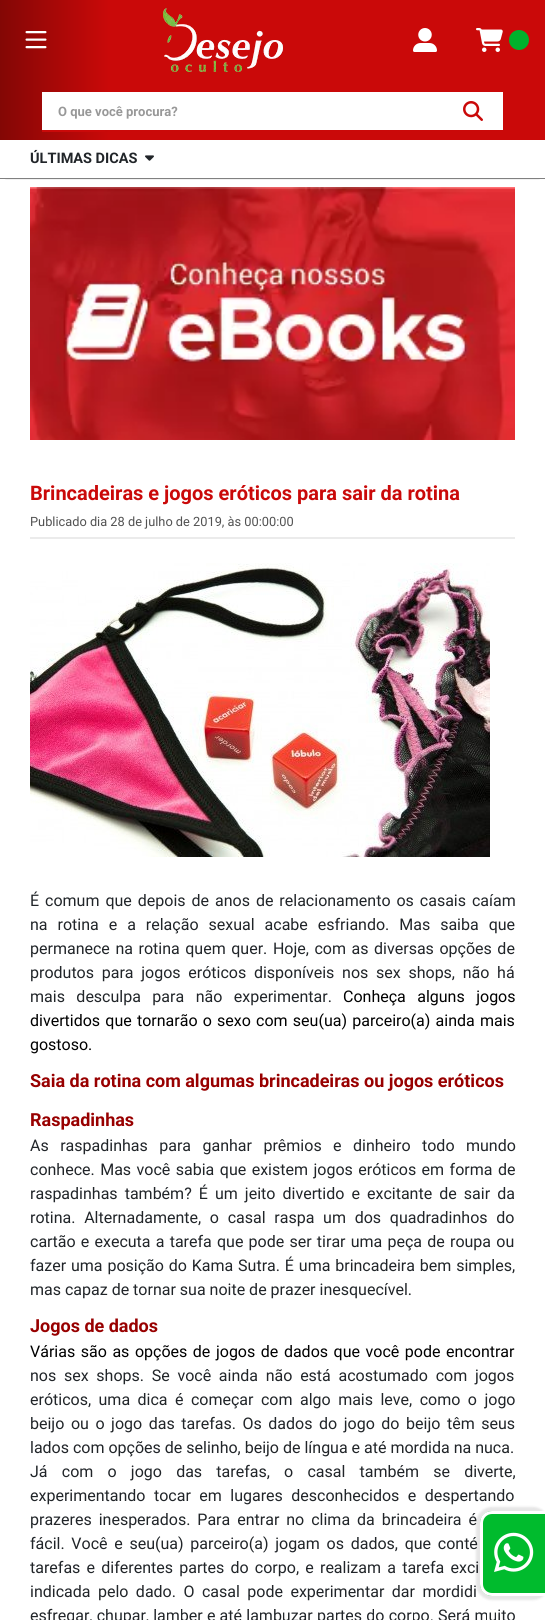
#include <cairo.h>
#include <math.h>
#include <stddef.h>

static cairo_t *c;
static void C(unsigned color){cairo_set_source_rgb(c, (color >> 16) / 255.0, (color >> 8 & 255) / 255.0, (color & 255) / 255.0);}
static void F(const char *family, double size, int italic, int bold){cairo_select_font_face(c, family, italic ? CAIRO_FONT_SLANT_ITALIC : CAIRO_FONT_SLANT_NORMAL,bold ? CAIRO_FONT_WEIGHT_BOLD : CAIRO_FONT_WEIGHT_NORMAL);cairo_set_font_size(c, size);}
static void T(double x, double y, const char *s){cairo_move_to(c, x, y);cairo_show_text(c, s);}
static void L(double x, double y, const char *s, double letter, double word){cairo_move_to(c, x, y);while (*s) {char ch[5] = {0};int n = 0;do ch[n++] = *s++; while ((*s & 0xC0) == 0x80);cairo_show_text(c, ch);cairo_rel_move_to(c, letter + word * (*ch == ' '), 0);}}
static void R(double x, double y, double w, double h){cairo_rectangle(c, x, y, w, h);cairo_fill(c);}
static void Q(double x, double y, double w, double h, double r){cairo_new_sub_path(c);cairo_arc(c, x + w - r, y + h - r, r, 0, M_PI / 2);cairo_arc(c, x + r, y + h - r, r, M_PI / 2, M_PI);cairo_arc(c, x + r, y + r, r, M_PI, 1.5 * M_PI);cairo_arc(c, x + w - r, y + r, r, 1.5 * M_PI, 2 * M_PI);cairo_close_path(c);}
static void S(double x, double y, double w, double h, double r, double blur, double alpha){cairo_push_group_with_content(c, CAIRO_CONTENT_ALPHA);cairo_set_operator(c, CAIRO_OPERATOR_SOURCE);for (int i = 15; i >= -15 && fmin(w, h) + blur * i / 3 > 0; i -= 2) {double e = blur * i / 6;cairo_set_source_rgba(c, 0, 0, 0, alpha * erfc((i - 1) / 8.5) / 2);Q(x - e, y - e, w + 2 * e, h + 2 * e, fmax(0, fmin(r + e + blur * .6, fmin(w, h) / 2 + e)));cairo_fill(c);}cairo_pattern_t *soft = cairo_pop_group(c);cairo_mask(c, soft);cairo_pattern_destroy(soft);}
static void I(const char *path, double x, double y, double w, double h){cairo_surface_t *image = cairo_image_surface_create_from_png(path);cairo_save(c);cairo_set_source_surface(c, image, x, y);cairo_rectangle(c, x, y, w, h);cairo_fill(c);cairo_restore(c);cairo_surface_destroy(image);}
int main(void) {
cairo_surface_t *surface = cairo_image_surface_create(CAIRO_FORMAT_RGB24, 545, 1620);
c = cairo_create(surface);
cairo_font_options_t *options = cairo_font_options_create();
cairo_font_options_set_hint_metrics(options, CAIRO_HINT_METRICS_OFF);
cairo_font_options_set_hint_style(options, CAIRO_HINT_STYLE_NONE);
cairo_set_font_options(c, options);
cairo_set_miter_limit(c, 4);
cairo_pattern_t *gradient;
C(0xffffff);
cairo_paint(c);
gradient = cairo_pattern_create_linear(0,70,545,70);
cairo_pattern_add_color_stop_rgba(gradient,0,0.514,0.027,0.02,1);
cairo_pattern_add_color_stop_rgba(gradient,.2,0.792,0.035,0.035,1);
cairo_pattern_add_color_stop_rgba(gradient,1,0.792,0.035,0.035,1);
cairo_set_source(c,gradient);
cairo_pattern_destroy(gradient);
R(0,0,545,140);
I("1.png",25,31,22,18);
I("2.png",163,8,120,64);
I("3.png",413,28,24,24);
I("4.png",476,28,27,24);
C(0x00b22c);
cairo_arc(c,519,40,10,0,2 * M_PI);
cairo_fill(c);
C(0xffffff);
R(42,92,461,38);
C(0xca0909);
R(42,130,63,2);
F("Roboto",13,0,1);
C(0x989898);
T(58,116,"O que você procura?");
I("5.png",463,101,20,20);
cairo_save(c);
cairo_rectangle(c,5,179,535,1);
cairo_clip(c);
C(0x000000);
S(6,150,533,27,0,2,.5);
cairo_restore(c);
C(0x808080);
R(0,178,545,1);
F("Roboto",14.5,0,1);
C(0x212529);
T(30,163,"ÚLTIMAS DICAS");
I("6.png",145,155,9,6);
I("7.png",30,187,485,253);
C(0xebebeb);
R(30,537,485,2);
F("Roboto",20,0,1);
C(0xca0909);
T(30,500,"Brincadeiras e jogos eróticos para sair da rotina");
F("Roboto",12.8,0,0);
C(0x525252);
T(30,526,"Publicado dia 28 de julho de 2019, às 00:00:00");
I("8.png",30,563,460,294);
F("Roboto",16,0,0);
C(0x212529);
L(30,906,"É comum que depois de anos de relacionamento os casais caíam",0,2);
L(30,930,"na rotina e a relação sexual acabe esfriando. Mas saiba que",0,6);
L(30,954,"permanece na rotina quem quer. Hoje, com as diversas opções de",0,1.6);
L(30,978,"produtos para jogos eróticos disponíveis nos sex shops, não há",0,3.75);
L(30,1002,"mais desculpa para não experimentar.",0,7.5);
C(0x000000);
L(343,1002,"Conheça alguns jogos",0,7.5);
L(30,1026,"divertidos que tornarão o sexo com seu(ua) parceiro(a) ainda mais",0,1.25);
T(30,1050,"gostoso.");
F("Roboto",18,0,1);
C(0x980000);
T(30,1087,"Saia da rotina com algumas brincadeiras ou jogos eróticos");
T(30,1126,"Raspadinhas");
F("Roboto",16,0,0);
C(0x212529);
L(30,1151,"As raspadinhas para ganhar prêmios e dinheiro todo mundo",0,7.5);
L(30,1175,"conhece. Mas você sabia que existem jogos eróticos em forma de",0,1.5);
L(30,1199,"raspadinhas também? É um jeito divertido e excitante de sair da",0,3.1);
L(30,1223,"rotina. Alternadamente, o casal raspa um dos quadradinhos do",0,4.75);
L(30,1247,"cartão e executa a tarefa que pode ser tirar uma peça de roupa ou",0,1.25);
L(30,1271,"fazer uma posição do Kama Sutra. É uma brincadeira bem simples,",0,.9);
T(30,1295,"mas capaz de tornar sua noite de prazer inesquecível.");
F("Roboto",18,0,1);
C(0x980000);
T(30,1332,"Jogos de dados");
F("Roboto",16,0,0);
C(0x000000);
L(30,1357,"Várias são as opções de jogos de dados que você pode encontrar",0,1.6);
C(0x212529);
L(30,1381,"nos sex shops. Se você ainda não está acostumado com jogos",0,3.75);
L(30,1405,"eróticos, uma dica é começar com algo mais leve, como o jogo",0,3.5);
L(30,1429,"beijo ou o jogo das tarefas. Os dados do jogo do beijo têm seus",0,2.6);
T(30,1453,"lados com opções de selinho, beijo de língua e até mordida na nuca.");
L(30,1477,"Já com o jogo das tarefas, o casal também se diverte,",0,10.25);
L(30,1501,"experimentando tocar em lugares desconhecidos e despertando",0,4.5);
L(30,1525,"prazeres inesperados. Para entrar no clima da brincadeira é",0,3);
L(30,1549,"fácil. Você e seu(ua) parceiro(a) jogam os dados, que conté",0,2.75);
L(30,1573,"tarefas e diferentes partes do corpo, e realizam a tarefa exci",0,2.25);
L(30,1597,"indicada pelo dado. O casal pode experimentar dar mordidi",0,3.5);
L(30,1621,"esfregar, chupar, lamber e até lambuzar partes do corpo. Será muito",0,.25);
C(0x000000);
S(476,1507,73,93,16,1,.1);
C(0x00bb2d);
cairo_new_path(c);
cairo_move_to(c,492,1511);
cairo_line_to(c,545,1511);
cairo_line_to(c,545,1596);
cairo_line_to(c,492,1596);
cairo_curve_to(c,485.5,1596,480,1590.5,480,1584);
cairo_line_to(c,480,1523);
cairo_curve_to(c,480,1516.5,485.5,1511,492,1511);
cairo_close_path(c);
cairo_fill(c);
C(0xffffff);
cairo_set_fill_rule(c,CAIRO_FILL_RULE_EVEN_ODD);
cairo_new_path(c);
cairo_move_to(c,492,1511);
cairo_line_to(c,545,1511);
cairo_line_to(c,545,1596);
cairo_line_to(c,492,1596);
cairo_curve_to(c,485,1596,480,1591,480,1584);
cairo_line_to(c,480,1523);
cairo_curve_to(c,480,1516,485,1511,492,1511);
cairo_close_path(c);
cairo_move_to(c,492,1514);
cairo_line_to(c,545,1514);
cairo_line_to(c,545,1593);
cairo_line_to(c,492,1593);
cairo_curve_to(c,487,1593,483,1589,483,1584);
cairo_line_to(c,483,1523);
cairo_curve_to(c,483,1518,487,1514,492,1514);
cairo_close_path(c);
cairo_fill(c);
I("9.png",494,1532,40,40);
cairo_surface_write_to_png(surface, "o.png");
cairo_font_options_destroy(options);
cairo_destroy(c);
cairo_surface_destroy(surface);
return 0;
}
